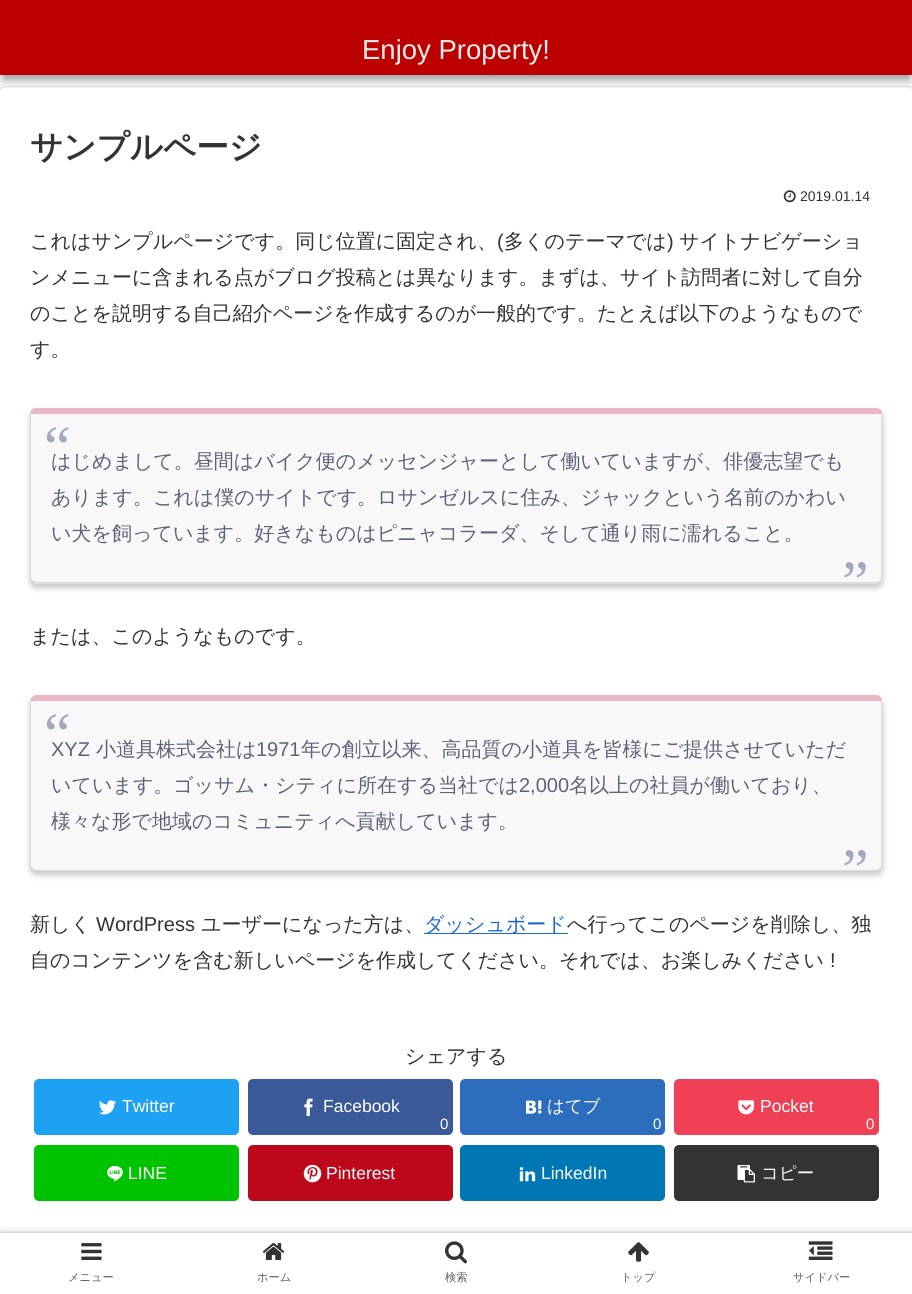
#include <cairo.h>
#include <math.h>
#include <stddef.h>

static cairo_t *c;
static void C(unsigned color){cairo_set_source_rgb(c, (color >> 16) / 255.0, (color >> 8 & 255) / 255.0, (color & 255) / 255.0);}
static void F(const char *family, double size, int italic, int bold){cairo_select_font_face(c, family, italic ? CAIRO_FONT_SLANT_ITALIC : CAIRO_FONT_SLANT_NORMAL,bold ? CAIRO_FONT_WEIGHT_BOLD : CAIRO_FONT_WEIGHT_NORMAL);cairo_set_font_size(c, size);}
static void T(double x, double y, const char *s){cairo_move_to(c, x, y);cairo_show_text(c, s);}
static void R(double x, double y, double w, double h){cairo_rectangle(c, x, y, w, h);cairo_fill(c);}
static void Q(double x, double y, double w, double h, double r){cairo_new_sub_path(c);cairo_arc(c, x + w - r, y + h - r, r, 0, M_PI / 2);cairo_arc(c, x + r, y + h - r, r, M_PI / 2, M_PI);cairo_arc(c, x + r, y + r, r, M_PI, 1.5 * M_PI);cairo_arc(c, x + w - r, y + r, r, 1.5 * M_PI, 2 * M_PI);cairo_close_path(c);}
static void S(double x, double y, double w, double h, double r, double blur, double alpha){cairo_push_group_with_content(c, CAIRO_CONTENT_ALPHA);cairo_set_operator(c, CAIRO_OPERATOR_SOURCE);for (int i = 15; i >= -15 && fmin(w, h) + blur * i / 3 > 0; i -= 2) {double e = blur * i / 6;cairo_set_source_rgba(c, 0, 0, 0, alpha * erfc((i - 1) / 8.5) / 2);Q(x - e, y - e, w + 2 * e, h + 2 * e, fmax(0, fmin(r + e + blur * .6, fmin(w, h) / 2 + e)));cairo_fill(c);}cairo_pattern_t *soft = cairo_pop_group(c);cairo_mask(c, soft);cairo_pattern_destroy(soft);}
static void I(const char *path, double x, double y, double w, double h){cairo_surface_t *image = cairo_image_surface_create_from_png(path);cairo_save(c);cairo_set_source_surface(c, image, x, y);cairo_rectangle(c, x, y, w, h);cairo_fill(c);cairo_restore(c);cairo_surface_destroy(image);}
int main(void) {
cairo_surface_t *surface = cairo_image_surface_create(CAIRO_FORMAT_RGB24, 912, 1294);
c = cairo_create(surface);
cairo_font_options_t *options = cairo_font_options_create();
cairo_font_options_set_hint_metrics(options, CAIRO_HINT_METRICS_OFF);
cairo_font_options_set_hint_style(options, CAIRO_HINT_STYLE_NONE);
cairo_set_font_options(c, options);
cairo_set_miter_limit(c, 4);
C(0xf4f5f7);
cairo_paint(c);
C(0x000000);
S(4,11,905,68,0,6,.18);
S(4,11,905,68,0,3,.24);
C(0xbc0000);
R(0,0,912,75);
F("Liberation Sans",27.5,0,0);
C(0xeeeeee);
T(362,59,"Enjoy Property!");
Q(-.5,86.5,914,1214,5.5);
cairo_set_source_rgba(c,0,0,0,0.08);
cairo_set_line_width(c,1);
cairo_stroke(c);
C(0xffffff);
Q(0,88,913,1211,5);
cairo_fill(c);
F("WenQuanYi Zen Hei",32.5,0,1);
C(0x333333);
T(30,158,"サンプルページ");
I("1.png",783,190,13,13);
F("Liberation Sans",14,0,0);
T(800,201,"2019.01.14");
F("WenQuanYi Zen Hei Medium",20,0,0);
T(30,248,"これはサンプルページです。同じ位置に固定され、");
F("Liberation Sans",20,0,0);
T(497,248,"(");
F("WenQuanYi Zen Hei Medium",20,0,0);
T(504,248,"多くのテーマでは");
F("Liberation Sans",20,0,0);
T(667,248,")");
F("WenQuanYi Zen Hei Medium",20,0,0);
T(679,248,"サイトナビゲーショ");
T(30,284,"ンメニューに含まれる点がブログ投稿とは異なります。まずは、サイト訪問者に対して自分");
T(30,320,"のことを説明する自己紹介ページを作成するのが一般的です。たとえば以下のようなもので");
T(30,356,"す。");
C(0x000000);
S(30,411,853,177,6,3,.22);
C(0xf9f7f8);
cairo_new_path(c);
cairo_move_to(c,36,414);
cairo_line_to(c,881,414);
cairo_line_to(c,881,578);
cairo_curve_to(c,881,580,879,582,876,582);
cairo_line_to(c,36,582);
cairo_curve_to(c,33,582,31,580,31,578);
cairo_line_to(c,31,414);
cairo_close_path(c);
cairo_fill(c);
C(0xecb7c5);
cairo_new_path(c);
cairo_move_to(c,36,408);
cairo_curve_to(c,34,408,32,409,31,411);
cairo_line_to(c,31,414);
cairo_line_to(c,881,414);
cairo_line_to(c,881,415);
cairo_line_to(c,882,412);
cairo_curve_to(c,881,409,879,408,876,408);
cairo_close_path(c);
cairo_fill(c);
C(0xdddddd);
cairo_new_path(c);
cairo_move_to(c,882,412);
cairo_line_to(c,882,579);
cairo_line_to(c,881,582);
cairo_line_to(c,880,581);
cairo_curve_to(c,880,580,881,579,881,578);
cairo_line_to(c,881,415);
cairo_close_path(c);
cairo_fill(c);
cairo_new_path(c);
cairo_move_to(c,34,584);
cairo_line_to(c,32,582);
cairo_line_to(c,33,581);
cairo_line_to(c,36,582);
cairo_line_to(c,876,582);
cairo_line_to(c,880,581);
cairo_line_to(c,881,582);
cairo_line_to(c,878,584);
cairo_close_path(c);
cairo_fill(c);
cairo_new_path(c);
cairo_move_to(c,30,414);
cairo_line_to(c,30,579);
cairo_line_to(c,32,582);
cairo_line_to(c,33,581);
cairo_line_to(c,31,578);
cairo_line_to(c,31,414);
cairo_line_to(c,31,411);
cairo_close_path(c);
cairo_fill(c);
F("Liberation Serif",60,0,0);
C(0xa3a8bf);
T(44,467,"“");
F("WenQuanYi Zen Hei Medium",20,0,0);
C(0x5d627b);
T(51,468,"はじめまして。昼間はバイク便のメッセンジャーとして働いていますが、俳優志望でも");
T(51,504,"あります。これは僕のサイトです。ロサンゼルスに住み、ジャックという名前のかわい");
T(51,540,"い犬を飼っています。好きなものはピニャコラーダ、そして通り雨に濡れること。");
F("Liberation Serif",60,0,0);
C(0xa3a8bf);
T(842,602,"”");
F("WenQuanYi Zen Hei Medium",20,0,0);
C(0x333333);
T(30,643,"または、このようなものです。");
C(0x000000);
S(30,699,853,176,6,3,.22);
C(0xf9f7f8);
cairo_new_path(c);
cairo_move_to(c,36,701);
cairo_line_to(c,881,701);
cairo_line_to(c,881,865);
cairo_curve_to(c,881,868,879,870,876,870);
cairo_line_to(c,36,870);
cairo_curve_to(c,33,870,31,868,31,865);
cairo_line_to(c,31,701);
cairo_close_path(c);
cairo_fill(c);
C(0xecb7c5);
cairo_new_path(c);
cairo_move_to(c,36,695);
cairo_curve_to(c,34,695,32,697,31,698);
cairo_line_to(c,31,701);
cairo_line_to(c,881,701);
cairo_line_to(c,881,702);
cairo_line_to(c,882,699);
cairo_curve_to(c,881,697,879,695,876,695);
cairo_close_path(c);
cairo_fill(c);
C(0xdddddd);
cairo_new_path(c);
cairo_move_to(c,882,699);
cairo_line_to(c,882,865);
cairo_curve_to(c,882,867,881,868,880,869);
cairo_line_to(c,880,868);
cairo_curve_to(c,881,868,881,866,881,865);
cairo_line_to(c,881,702);
cairo_close_path(c);
cairo_fill(c);
cairo_new_path(c);
cairo_move_to(c,880,869);
cairo_curve_to(c,879,870,878,871,876,871);
cairo_line_to(c,36,871);
cairo_curve_to(c,35,871,33,870,32,869);
cairo_line_to(c,33,869);
cairo_curve_to(c,33,870,35,870,36,870);
cairo_line_to(c,876,870);
cairo_curve_to(c,878,870,879,869,880,868);
cairo_close_path(c);
cairo_fill(c);
cairo_new_path(c);
cairo_move_to(c,30,701);
cairo_line_to(c,30,866);
cairo_line_to(c,32,869);
cairo_line_to(c,33,869);
cairo_line_to(c,31,866);
cairo_line_to(c,31,701);
cairo_line_to(c,31,698);
cairo_close_path(c);
cairo_fill(c);
F("Liberation Serif",60,0,0);
C(0xa3a8bf);
T(44,754,"“");
F("Liberation Sans",20,0,0);
C(0x5d627b);
T(51,756,"XYZ");
F("WenQuanYi Zen Hei Medium",20,0,0);
T(96,756,"小道具株式会社は");
F("Liberation Sans",20,0,0);
T(256,756,"1971");
F("WenQuanYi Zen Hei Medium",20,0,0);
T(301,756,"年の創立以来、高品質の小道具を皆様にご提供させていただ");
T(51,792,"いています。ゴッサム・シティに所在する当社では");
F("Liberation Sans",20,0,0);
T(519,792,"2,000");
F("WenQuanYi Zen Hei Medium",20,0,0);
T(569,792,"名以上の社員が働いており、");
T(51,828,"様々な形で地域のコミュニティへ貢献しています。");
F("Liberation Serif",60,0,0);
C(0xa3a8bf);
T(842,890,"”");
F("WenQuanYi Zen Hei Medium",20,0,0);
C(0x333333);
T(30,931,"新しく");
F("Liberation Sans",20,0,0);
T(96,931,"WordPress");
F("WenQuanYi Zen Hei Medium",20,0,0);
T(201,931,"ユーザーになった方は、");
C(0x1967d2);
R(424,933,144,1);
T(424,931,"ダッシュボード");
C(0x333333);
T(567,931,"へ行ってこのページを削除し、独");
T(30,967,"自のコンテンツを含む新しいページを作成してください。それでは、お楽しみください");
F("Liberation Sans",20,0,0);
T(830,967,"!");
F("WenQuanYi Zen Hei Medium",20,0,0);
T(405,1063,"シェアする");
C(0x1da1f2);
Q(34,1079,205,56,5);
cairo_fill(c);
I("2.png",99,1100,17,15);
F("Liberation Sans",17.5,0,0);
C(0xffffff);
T(122,1112,"Twitter");
C(0x3b5998);
Q(248,1079,205,56,5);
cairo_fill(c);
I("3.png",304,1098,9,19);
C(0xffffff);
T(323,1112,"Facebook");
F("Liberation Sans",15,0,0);
T(440,1129,"0");
C(0x2c6ebd);
Q(460,1079,205,56,5);
cairo_fill(c);
I("4.png",526,1100,16,14);
F("WenQuanYi Zen Hei Medium",17.5,0,0);
C(0xffffff);
T(547,1112,"はてブ");
F("Liberation Sans",15,0,0);
T(653,1129,"0");
C(0xef4056);
Q(674,1079,205,56,5);
cairo_fill(c);
I("5.png",738,1100,17,15);
F("Liberation Sans",17.5,0,0);
C(0xffffff);
T(760,1112,"Pocket");
F("Liberation Sans",15,0,0);
T(866,1129,"0");
C(0x00c300);
Q(34,1145,205,56,5);
cairo_fill(c);
I("6.png",107,1165,16,17);
F("Liberation Sans",17.5,0,0);
C(0xffffff);
T(128,1179,"LINE");
C(0xbd081c);
Q(248,1145,205,56,5);
cairo_fill(c);
I("7.png",303,1164,19,19);
C(0xffffff);
T(326,1179,"Pinterest");
C(0x0077b5);
Q(460,1145,205,56,5);
cairo_fill(c);
I("8.png",519,1167,17,15);
C(0xffffff);
T(541,1179,"LinkedIn");
C(0x333333);
Q(674,1145,205,56,5);
cairo_fill(c);
I("9.png",737,1165,18,18);
F("WenQuanYi Zen Hei Medium",17.5,0,0);
C(0xffffff);
T(761,1179,"コピー");
C(0xa9a9a9);
S(0,1233,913,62,0,3,1);
C(0xffffff);
R(0,1233,912,61);
I("10.png",81,1243,21,17);
F("WenQuanYi Zen Hei Medium",11.25,0,0);
C(0x5c5c5c);
T(68,1281,"メニュー");
I("11.png",262,1243,23,17);
T(257,1281,"ホーム");
I("12.png",445,1241,22,23);
T(445,1281,"検索");
I("13.png",628,1242,21,20);
T(621,1281,"トップ");
I("14.png",808,1241,25,19);
T(793,1281,"サイドバー");
cairo_surface_write_to_png(surface, "o.png");
cairo_font_options_destroy(options);
cairo_destroy(c);
cairo_surface_destroy(surface);
return 0;
}
